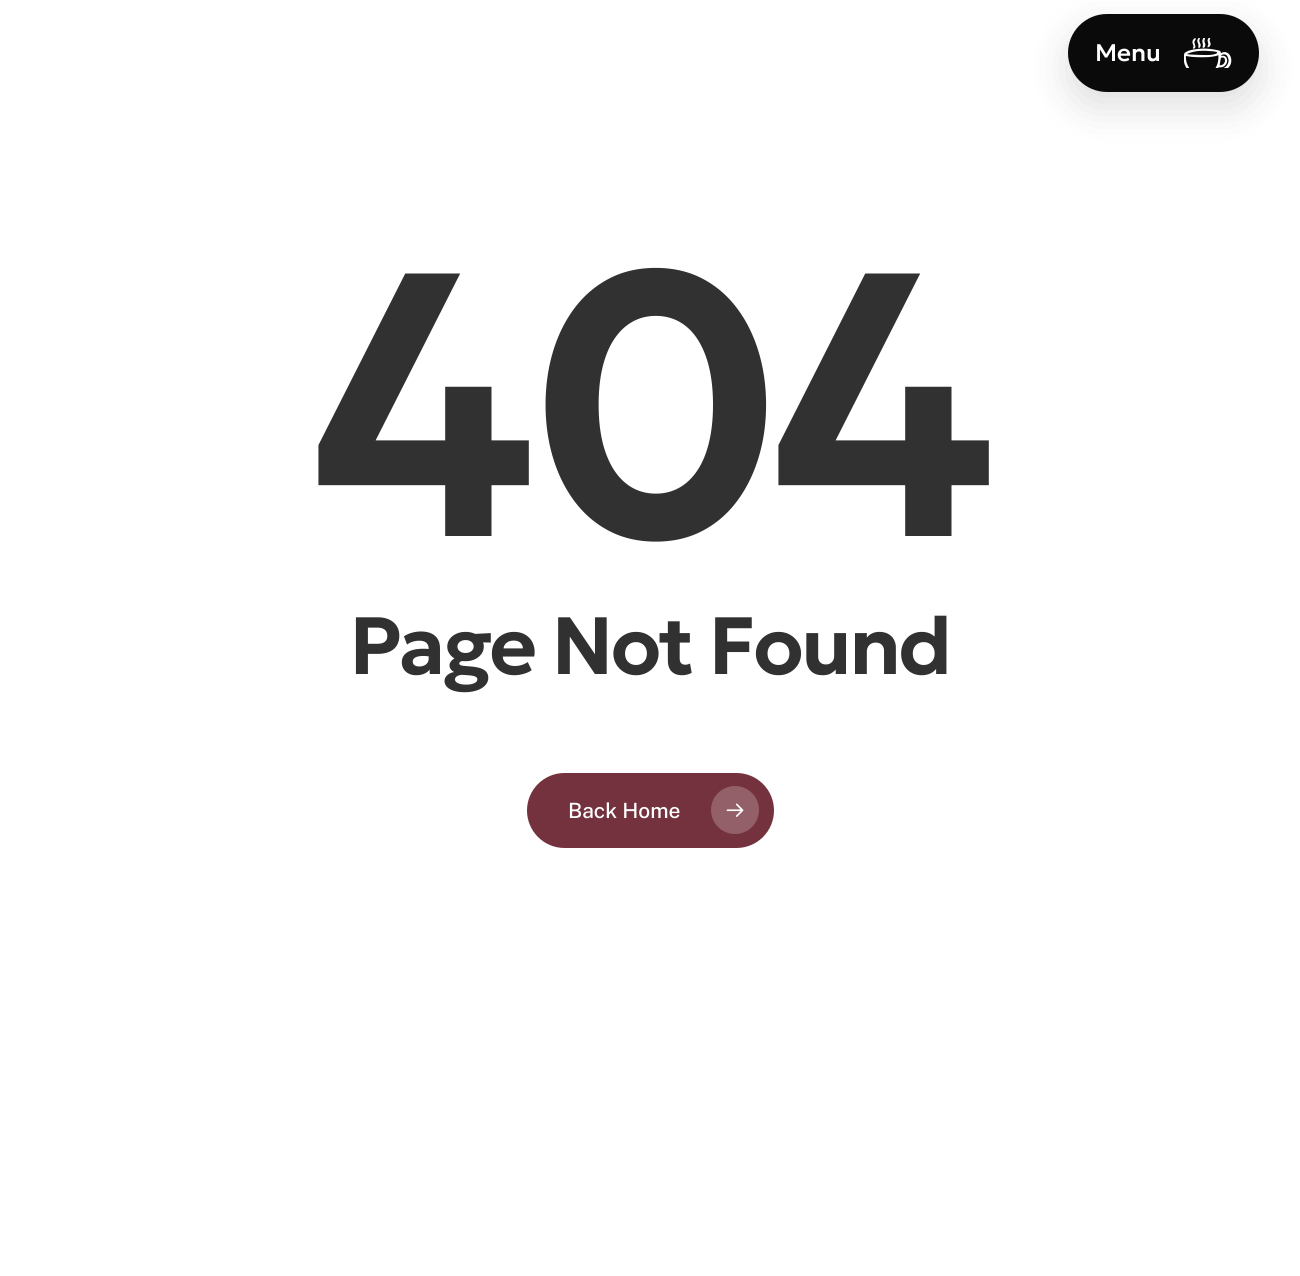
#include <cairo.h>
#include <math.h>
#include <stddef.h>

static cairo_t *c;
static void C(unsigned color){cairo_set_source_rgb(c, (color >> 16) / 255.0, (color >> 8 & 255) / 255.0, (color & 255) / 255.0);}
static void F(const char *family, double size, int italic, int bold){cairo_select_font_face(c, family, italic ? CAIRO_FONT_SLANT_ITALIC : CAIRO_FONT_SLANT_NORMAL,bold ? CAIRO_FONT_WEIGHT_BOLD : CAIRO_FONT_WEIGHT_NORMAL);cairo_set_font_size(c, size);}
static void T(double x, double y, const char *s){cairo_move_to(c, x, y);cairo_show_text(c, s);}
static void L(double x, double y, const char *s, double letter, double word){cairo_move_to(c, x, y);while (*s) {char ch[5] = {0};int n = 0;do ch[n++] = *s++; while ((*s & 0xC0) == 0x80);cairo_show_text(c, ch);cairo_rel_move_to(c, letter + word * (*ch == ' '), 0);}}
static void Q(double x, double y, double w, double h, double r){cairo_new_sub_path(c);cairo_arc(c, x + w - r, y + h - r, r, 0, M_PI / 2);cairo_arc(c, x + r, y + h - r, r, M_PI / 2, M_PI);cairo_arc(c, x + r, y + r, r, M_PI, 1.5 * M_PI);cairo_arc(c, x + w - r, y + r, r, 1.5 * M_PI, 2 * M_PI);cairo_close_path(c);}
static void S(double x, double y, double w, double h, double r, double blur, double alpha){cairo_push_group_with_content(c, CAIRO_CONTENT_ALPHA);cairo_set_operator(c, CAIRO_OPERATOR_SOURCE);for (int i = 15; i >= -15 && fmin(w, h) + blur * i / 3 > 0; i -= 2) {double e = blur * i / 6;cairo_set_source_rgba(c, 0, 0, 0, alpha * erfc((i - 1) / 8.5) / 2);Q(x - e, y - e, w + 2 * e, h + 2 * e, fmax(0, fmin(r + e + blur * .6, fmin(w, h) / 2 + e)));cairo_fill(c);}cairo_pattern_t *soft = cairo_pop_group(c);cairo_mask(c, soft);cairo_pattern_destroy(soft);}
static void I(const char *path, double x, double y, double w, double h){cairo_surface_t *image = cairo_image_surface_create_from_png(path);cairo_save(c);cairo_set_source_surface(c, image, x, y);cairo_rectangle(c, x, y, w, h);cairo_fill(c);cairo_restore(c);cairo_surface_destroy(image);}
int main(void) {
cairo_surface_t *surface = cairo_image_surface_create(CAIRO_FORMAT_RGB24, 1300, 1276);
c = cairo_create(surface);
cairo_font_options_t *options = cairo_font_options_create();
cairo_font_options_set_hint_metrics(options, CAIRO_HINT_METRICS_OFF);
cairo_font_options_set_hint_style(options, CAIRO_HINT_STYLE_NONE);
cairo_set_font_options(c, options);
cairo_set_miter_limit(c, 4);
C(0xffffff);
cairo_paint(c);
C(0x000000);
S(1068,29,191,78,39,19,.13);
C(0x0a0a0a);
Q(1068,14,191,78,39);
cairo_fill(c);
F("Geologica Medium",24,0,0);
C(0xffffff);
T(1095,61,"Menu");
I("1.png",1184,38,48,30);
F("Geologica SemiBold",375,0,0);
C(0x313131);
L(313,536,"404",-11,0);
F("Geologica SemiBold",81,0,0);
L(349,674,"Page Not Found",-2.5,0);
C(0x74323e);
Q(527,773,247,75,37.5);
cairo_fill(c);
F("Public Sans Medium",21,0,0);
C(0xffffff);
T(568,818,"Back Home");
C(0x935f68);
cairo_new_path(c);
cairo_arc(c,735,810,24,0,2 * M_PI);
cairo_fill(c);
I("2.png",726,803,18,14);
cairo_surface_write_to_png(surface, "o.png");
cairo_font_options_destroy(options);
cairo_destroy(c);
cairo_surface_destroy(surface);
return 0;
}
